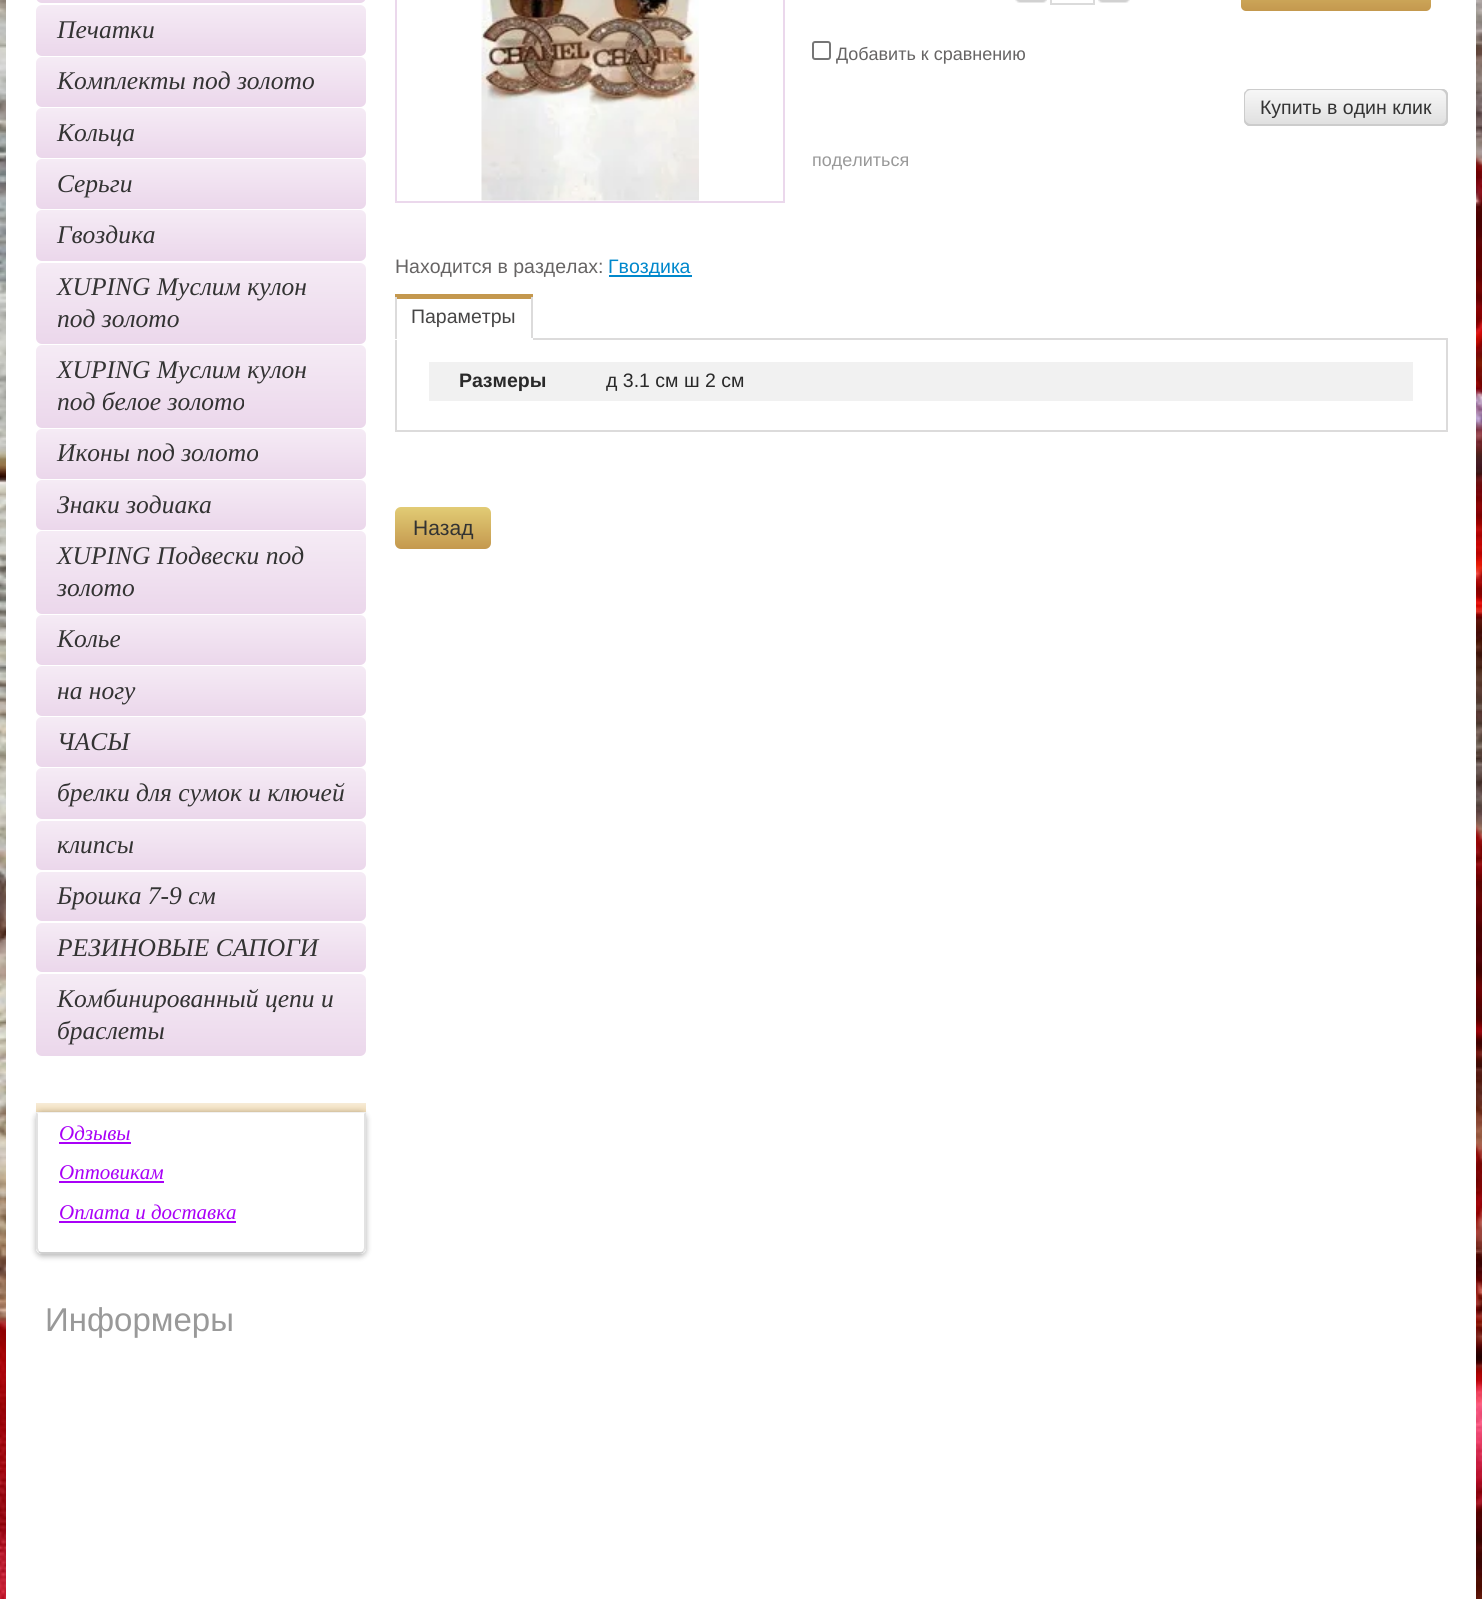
#include <cairo.h>
#include <math.h>
#include <stddef.h>

static cairo_t *c;
static void C(unsigned color){cairo_set_source_rgb(c, (color >> 16) / 255.0, (color >> 8 & 255) / 255.0, (color & 255) / 255.0);}
static void F(const char *family, double size, int italic, int bold){cairo_select_font_face(c, family, italic ? CAIRO_FONT_SLANT_ITALIC : CAIRO_FONT_SLANT_NORMAL,bold ? CAIRO_FONT_WEIGHT_BOLD : CAIRO_FONT_WEIGHT_NORMAL);cairo_set_font_size(c, size);}
static void T(double x, double y, const char *s){cairo_move_to(c, x, y);cairo_show_text(c, s);}
static void R(double x, double y, double w, double h){cairo_rectangle(c, x, y, w, h);cairo_fill(c);}
static void Q(double x, double y, double w, double h, double r){cairo_new_sub_path(c);cairo_arc(c, x + w - r, y + h - r, r, 0, M_PI / 2);cairo_arc(c, x + r, y + h - r, r, M_PI / 2, M_PI);cairo_arc(c, x + r, y + r, r, M_PI, 1.5 * M_PI);cairo_arc(c, x + w - r, y + r, r, 1.5 * M_PI, 2 * M_PI);cairo_close_path(c);}
static void S(double x, double y, double w, double h, double r, double blur, double alpha){cairo_push_group_with_content(c, CAIRO_CONTENT_ALPHA);cairo_set_operator(c, CAIRO_OPERATOR_SOURCE);for (int i = 15; i >= -15 && fmin(w, h) + blur * i / 3 > 0; i -= 2) {double e = blur * i / 6;cairo_set_source_rgba(c, 0, 0, 0, alpha * erfc((i - 1) / 8.5) / 2);Q(x - e, y - e, w + 2 * e, h + 2 * e, fmax(0, fmin(r + e + blur * .6, fmin(w, h) / 2 + e)));cairo_fill(c);}cairo_pattern_t *soft = cairo_pop_group(c);cairo_mask(c, soft);cairo_pattern_destroy(soft);}
static void I(const char *path, double x, double y, double w, double h){cairo_surface_t *image = cairo_image_surface_create_from_png(path);cairo_save(c);cairo_set_source_surface(c, image, x, y);cairo_rectangle(c, x, y, w, h);cairo_fill(c);cairo_restore(c);cairo_surface_destroy(image);}
int main(void) {
cairo_surface_t *surface = cairo_image_surface_create(CAIRO_FORMAT_RGB24, 1482, 1599);
c = cairo_create(surface);
cairo_font_options_t *options = cairo_font_options_create();
cairo_font_options_set_hint_metrics(options, CAIRO_HINT_METRICS_OFF);
cairo_font_options_set_hint_style(options, CAIRO_HINT_STYLE_NONE);
cairo_set_font_options(c, options);
cairo_set_miter_limit(c, 4);
cairo_pattern_t *gradient;
C(0xffffff);
cairo_paint(c);
I("1.png",0,0,1482,1599);
C(0xffffff);
R(6,0,1470,1599);
gradient = cairo_pattern_create_linear(201,-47,201,3);
cairo_pattern_add_color_stop_rgba(gradient,0,0.961,0.922,0.961,1);
cairo_pattern_add_color_stop_rgba(gradient,1,0.922,0.843,0.922,1);
cairo_set_source(c,gradient);
cairo_pattern_destroy(gradient);
Q(36,-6,330,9,6);
cairo_fill(c);
gradient = cairo_pattern_create_linear(201,4.5,201,56);
cairo_pattern_add_color_stop_rgba(gradient,0,0.961,0.922,0.961,1);
cairo_pattern_add_color_stop_rgba(gradient,1,0.922,0.843,0.922,1);
cairo_set_source(c,gradient);
cairo_pattern_destroy(gradient);
Q(36,5,330,51,6);
cairo_fill(c);
F("Liberation Serif",25.5,1,0);
C(0x333333);
T(57,38,"Печатки");
gradient = cairo_pattern_create_linear(201,57,201,107);
cairo_pattern_add_color_stop_rgba(gradient,0,0.961,0.922,0.961,1);
cairo_pattern_add_color_stop_rgba(gradient,1,0.922,0.843,0.922,1);
cairo_set_source(c,gradient);
cairo_pattern_destroy(gradient);
Q(36,57,330,50,6);
cairo_fill(c);
C(0x333333);
T(57,89,"Комплекты под золото");
gradient = cairo_pattern_create_linear(201,108,201,158);
cairo_pattern_add_color_stop_rgba(gradient,0,0.961,0.922,0.961,1);
cairo_pattern_add_color_stop_rgba(gradient,1,0.922,0.843,0.922,1);
cairo_set_source(c,gradient);
cairo_pattern_destroy(gradient);
Q(36,108,330,50,6);
cairo_fill(c);
C(0x333333);
T(57,141,"Кольца");
gradient = cairo_pattern_create_linear(201,159,201,209);
cairo_pattern_add_color_stop_rgba(gradient,0,0.961,0.922,0.961,1);
cairo_pattern_add_color_stop_rgba(gradient,1,0.922,0.843,0.922,1);
cairo_set_source(c,gradient);
cairo_pattern_destroy(gradient);
Q(36,159,330,50,6);
cairo_fill(c);
C(0x333333);
T(57,192,"Серьги");
gradient = cairo_pattern_create_linear(201,210,201,261);
cairo_pattern_add_color_stop_rgba(gradient,0,0.961,0.922,0.961,1);
cairo_pattern_add_color_stop_rgba(gradient,1,0.922,0.843,0.922,1);
cairo_set_source(c,gradient);
cairo_pattern_destroy(gradient);
Q(36,210,330,51,6);
cairo_fill(c);
C(0x333333);
T(57,243,"Гвоздика");
gradient = cairo_pattern_create_linear(201,263,201,344);
cairo_pattern_add_color_stop_rgba(gradient,0,0.961,0.922,0.961,1);
cairo_pattern_add_color_stop_rgba(gradient,1,0.922,0.843,0.922,1);
cairo_set_source(c,gradient);
cairo_pattern_destroy(gradient);
Q(36,263,330,81,6);
cairo_fill(c);
C(0x333333);
T(57,295,"XUPING Муслим кулон");
T(57,327,"под золото");
gradient = cairo_pattern_create_linear(201,345,201,428);
cairo_pattern_add_color_stop_rgba(gradient,0,0.961,0.922,0.961,1);
cairo_pattern_add_color_stop_rgba(gradient,1,0.922,0.843,0.922,1);
cairo_set_source(c,gradient);
cairo_pattern_destroy(gradient);
Q(36,345,330,83,6);
cairo_fill(c);
C(0x333333);
T(57,378,"XUPING Муслим кулон");
T(57,410,"под белое золото");
gradient = cairo_pattern_create_linear(201,429,201,479);
cairo_pattern_add_color_stop_rgba(gradient,0,0.961,0.922,0.961,1);
cairo_pattern_add_color_stop_rgba(gradient,1,0.922,0.843,0.922,1);
cairo_set_source(c,gradient);
cairo_pattern_destroy(gradient);
Q(36,429,330,50,6);
cairo_fill(c);
C(0x333333);
T(57,461,"Иконы под золото");
gradient = cairo_pattern_create_linear(201,480,201,530);
cairo_pattern_add_color_stop_rgba(gradient,0,0.961,0.922,0.961,1);
cairo_pattern_add_color_stop_rgba(gradient,1,0.922,0.843,0.922,1);
cairo_set_source(c,gradient);
cairo_pattern_destroy(gradient);
Q(36,480,330,50,6);
cairo_fill(c);
C(0x333333);
T(57,513,"Знаки зодиака");
gradient = cairo_pattern_create_linear(201,531,201,614);
cairo_pattern_add_color_stop_rgba(gradient,0,0.961,0.922,0.961,1);
cairo_pattern_add_color_stop_rgba(gradient,1,0.922,0.843,0.922,1);
cairo_set_source(c,gradient);
cairo_pattern_destroy(gradient);
Q(36,531,330,83,6);
cairo_fill(c);
C(0x333333);
T(57,564,"XUPING Подвески под");
T(57,596,"золото");
gradient = cairo_pattern_create_linear(201,615,201,665);
cairo_pattern_add_color_stop_rgba(gradient,0,0.961,0.922,0.961,1);
cairo_pattern_add_color_stop_rgba(gradient,1,0.922,0.843,0.922,1);
cairo_set_source(c,gradient);
cairo_pattern_destroy(gradient);
Q(36,615,330,50,6);
cairo_fill(c);
C(0x333333);
T(57,647,"Колье");
gradient = cairo_pattern_create_linear(201,666,201,716);
cairo_pattern_add_color_stop_rgba(gradient,0,0.961,0.922,0.961,1);
cairo_pattern_add_color_stop_rgba(gradient,1,0.922,0.843,0.922,1);
cairo_set_source(c,gradient);
cairo_pattern_destroy(gradient);
Q(36,666,330,50,6);
cairo_fill(c);
C(0x333333);
T(57,699,"на ногу");
gradient = cairo_pattern_create_linear(201,717,201,767);
cairo_pattern_add_color_stop_rgba(gradient,0,0.961,0.922,0.961,1);
cairo_pattern_add_color_stop_rgba(gradient,1,0.922,0.843,0.922,1);
cairo_set_source(c,gradient);
cairo_pattern_destroy(gradient);
Q(36,717,330,50,6);
cairo_fill(c);
C(0x333333);
T(57,750,"ЧАСЫ");
gradient = cairo_pattern_create_linear(201,768,201,819);
cairo_pattern_add_color_stop_rgba(gradient,0,0.961,0.922,0.961,1);
cairo_pattern_add_color_stop_rgba(gradient,1,0.922,0.843,0.922,1);
cairo_set_source(c,gradient);
cairo_pattern_destroy(gradient);
Q(36,768,330,51,6);
cairo_fill(c);
C(0x333333);
T(57,801,"брелки для сумок и ключей");
gradient = cairo_pattern_create_linear(201,821,201,870);
cairo_pattern_add_color_stop_rgba(gradient,0,0.961,0.922,0.961,1);
cairo_pattern_add_color_stop_rgba(gradient,1,0.922,0.843,0.922,1);
cairo_set_source(c,gradient);
cairo_pattern_destroy(gradient);
Q(36,821,330,49,6);
cairo_fill(c);
C(0x333333);
T(57,853,"клипсы");
gradient = cairo_pattern_create_linear(201,872,201,921);
cairo_pattern_add_color_stop_rgba(gradient,0,0.961,0.922,0.961,1);
cairo_pattern_add_color_stop_rgba(gradient,1,0.922,0.843,0.922,1);
cairo_set_source(c,gradient);
cairo_pattern_destroy(gradient);
Q(36,872,330,49,6);
cairo_fill(c);
C(0x333333);
T(57,904,"Брошка 7-9 см");
gradient = cairo_pattern_create_linear(201,923,201,972);
cairo_pattern_add_color_stop_rgba(gradient,0,0.961,0.922,0.961,1);
cairo_pattern_add_color_stop_rgba(gradient,1,0.922,0.843,0.922,1);
cairo_set_source(c,gradient);
cairo_pattern_destroy(gradient);
Q(36,923,330,49,6);
cairo_fill(c);
C(0x333333);
T(57,956,"РЕЗИНОВЫЕ САПОГИ");
gradient = cairo_pattern_create_linear(201,974,201,1056);
cairo_pattern_add_color_stop_rgba(gradient,0,0.961,0.922,0.961,1);
cairo_pattern_add_color_stop_rgba(gradient,1,0.922,0.843,0.922,1);
cairo_set_source(c,gradient);
cairo_pattern_destroy(gradient);
Q(36,974,330,82,6);
cairo_fill(c);
C(0x333333);
T(57,1007,"Комбинированный цепи и");
T(57,1039,"браслеты");
gradient = cairo_pattern_create_linear(201,1103,201,1112);
cairo_pattern_add_color_stop_rgba(gradient,0,0.969,0.925,0.847,1);
cairo_pattern_add_color_stop_rgba(gradient,1,0.937,0.855,0.71,1);
cairo_set_source(c,gradient);
cairo_pattern_destroy(gradient);
R(36,1103,330,9);
cairo_save(c);
cairo_set_fill_rule(c,CAIRO_FILL_RULE_EVEN_ODD);
cairo_new_path(c);
cairo_move_to(c,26,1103);
cairo_line_to(c,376,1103);
cairo_line_to(c,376,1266);
cairo_line_to(c,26,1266);
cairo_close_path(c);
cairo_move_to(c,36,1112);
cairo_line_to(c,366,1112);
cairo_line_to(c,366,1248);
cairo_curve_to(c,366,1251.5,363.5,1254,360,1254);
cairo_line_to(c,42,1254);
cairo_curve_to(c,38.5,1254,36,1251.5,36,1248);
cairo_close_path(c);
cairo_clip(c);
C(0x000000);
S(36,1113,330,143,6,3,.3);
cairo_restore(c);
C(0xf1f1f1);
cairo_new_path(c);
cairo_move_to(c,38,1113);
cairo_line_to(c,364,1113);
cairo_line_to(c,364,1114);
cairo_line_to(c,366,1112);
cairo_line_to(c,36,1112);
cairo_line_to(c,38,1114);
cairo_close_path(c);
cairo_fill(c);
C(0xe2e2e2);
cairo_new_path(c);
cairo_move_to(c,366,1248);
cairo_line_to(c,366,1112);
cairo_line_to(c,364,1114);
cairo_line_to(c,364,1248);
cairo_line_to(c,363,1251);
cairo_line_to(c,364,1252);
cairo_curve_to(c,365,1251,366,1250,366,1248);
cairo_close_path(c);
cairo_fill(c);
C(0xcfcfcf);
cairo_new_path(c);
cairo_move_to(c,42,1254);
cairo_line_to(c,360,1254);
cairo_curve_to(c,362,1254,363,1253,364,1252);
cairo_line_to(c,363,1251);
cairo_curve_to(c,362,1252,361,1252,360,1252);
cairo_line_to(c,42,1252);
cairo_curve_to(c,41,1252,40,1252,39,1251);
cairo_line_to(c,38,1252);
cairo_curve_to(c,39,1253,40,1254,42,1254);
cairo_close_path(c);
cairo_fill(c);
C(0xe2e2e2);
cairo_new_path(c);
cairo_move_to(c,36,1112);
cairo_line_to(c,38,1114);
cairo_line_to(c,38,1248);
cairo_line_to(c,39,1251);
cairo_line_to(c,38,1252);
cairo_line_to(c,36,1249);
cairo_close_path(c);
cairo_fill(c);
F("Liberation Serif",21,1,0);
C(0xa900f7);
T(59,1140,"Одзывы");
R(59,1142,72,2);
T(59,1179,"Оптовикам");
R(59,1181,105,2);
T(59,1219,"Оплата и доставка");
R(59,1221,177,2);
F("Liberation Sans",33,0,0);
C(0x999999);
T(45,1331,"Информеры");
cairo_rectangle(c,396,-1,388,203);
C(0xebd8ec);
cairo_stroke(c);
I("2.png",481,0,218,201);
I("3.png",1015,0,32,3);
cairo_rectangle(c,1051,-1,43,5);
C(0xdbdbdb);
cairo_stroke(c);
I("4.png",1098,0,32,3);
gradient = cairo_pattern_create_linear(1336,-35,1336,11);
cairo_pattern_add_color_stop_rgba(gradient,0,0.886,0.8,0.459,1);
cairo_pattern_add_color_stop_rgba(gradient,1,0.769,0.596,0.306,1);
cairo_set_source(c,gradient);
cairo_pattern_destroy(gradient);
Q(1241,-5,190,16,5);
cairo_fill(c);
Q(813,42,17,17,2);
C(0x767676);
cairo_stroke(c);
F("Liberation Sans",18,0,0);
C(0x666464);
T(836,60,"Добавить к сравнению");
gradient = cairo_pattern_create_linear(1346,88,1346,126);
cairo_pattern_add_color_stop_rgba(gradient,0,0.973,0.973,0.973,1);
cairo_pattern_add_color_stop_rgba(gradient,1,0.875,0.875,0.875,1);
cairo_set_source(c,gradient);
cairo_pattern_destroy(gradient);
Q(1244,89,204,37,6);
cairo_fill(c);
C(0xcccccc);
cairo_new_path(c);
cairo_move_to(c,1245,91);
cairo_curve_to(c,1245,92,1244,94,1244,95);
cairo_line_to(c,1244,120);
cairo_curve_to(c,1244,123,1247,126,1250,126);
cairo_line_to(c,1442,126);
cairo_curve_to(c,1445,126,1447,124,1448,122);
cairo_curve_to(c,1447,123,1445,124,1443,124);
cairo_line_to(c,1251,124);
cairo_curve_to(c,1248,124,1245,122,1245,118);
cairo_close_path(c);
cairo_fill(c);
cairo_save(c);
cairo_rectangle(c,812,0,636,180);
cairo_clip(c);
cairo_new_path(c);
cairo_move_to(c,1248,90);
cairo_line_to(c,1440,90);
cairo_curve_to(c,1443,90,1446,93,1446,96);
cairo_line_to(c,1446,122);
cairo_curve_to(c,1446,123,1446,124,1445,125);
cairo_curve_to(c,1448,123,1448,119,1448,116);
cairo_line_to(c,1448,103);
cairo_curve_to(c,1448,99,1450,89,1442,89);
cairo_line_to(c,1249,89);
cairo_line_to(c,1246,90);
cairo_close_path(c);
cairo_fill(c);
cairo_restore(c);
cairo_new_path(c);
cairo_move_to(c,1245,123);
cairo_curve_to(c,1246,125,1248,126,1250,126);
cairo_line_to(c,1442,126);
cairo_curve_to(c,1445,126,1448,123,1448,120);
cairo_line_to(c,1448,95);
cairo_curve_to(c,1448,93,1447,91,1445,90);
cairo_curve_to(c,1446,91,1446,92,1446,93);
cairo_line_to(c,1446,118);
cairo_curve_to(c,1446,122,1443,124,1440,124);
cairo_line_to(c,1248,124);
cairo_close_path(c);
cairo_fill(c);
cairo_new_path(c);
cairo_move_to(c,1251,90);
cairo_line_to(c,1444,90);
cairo_line_to(c,1447,92);
cairo_curve_to(c,1446,90,1444,89,1442,89);
cairo_line_to(c,1250,89);
cairo_curve_to(c,1247,89,1244,92,1244,95);
cairo_line_to(c,1244,120);
cairo_curve_to(c,1244,121,1245,123,1245,124);
cairo_line_to(c,1245,109);
cairo_curve_to(c,1245,104,1242,90,1251,90);
cairo_close_path(c);
cairo_fill(c);
F("Liberation Sans",19.5,0,0);
C(0x333333);
T(1260,114,"Купить в один клик");
F("Liberation Sans",18,0,0);
C(0x999999);
T(812,166,"поделиться");
F("Liberation Sans",19.5,0,0);
C(0x666464);
T(395,273,"Находится в разделах:");
C(0x0088cc);
R(609,275,83,2);
T(608,273,"Гвоздика");
C(0xc4984e);
R(395,294,138,5);
cairo_rectangle(c,396,339,1051,92);
C(0xdcdbdb);
cairo_stroke(c);
R(531,297,2,42);
C(0xffffff);
R(395,338,138,2);
C(0xdcdbdb);
R(395,297,2,42);
C(0x474646);
T(411,323,"Параметры");
C(0xf1f1f1);
R(429,362,984,39);
F("Liberation Sans",19.5,0,1);
C(0x2a2a2a);
T(459,387,"Размеры");
F("Liberation Sans",19.5,0,0);
T(606,387,"д 3.1 cм ш 2 cм");
gradient = cairo_pattern_create_linear(443,507,443,549);
cairo_pattern_add_color_stop_rgba(gradient,0,0.886,0.8,0.459,1);
cairo_pattern_add_color_stop_rgba(gradient,1,0.769,0.596,0.306,1);
cairo_set_source(c,gradient);
cairo_pattern_destroy(gradient);
Q(395,507,96,42,6);
cairo_fill(c);
F("Liberation Sans",21,0,0);
C(0x333333);
T(413,535,"Назад");
cairo_surface_write_to_png(surface, "o.png");
cairo_font_options_destroy(options);
cairo_destroy(c);
cairo_surface_destroy(surface);
return 0;
}
